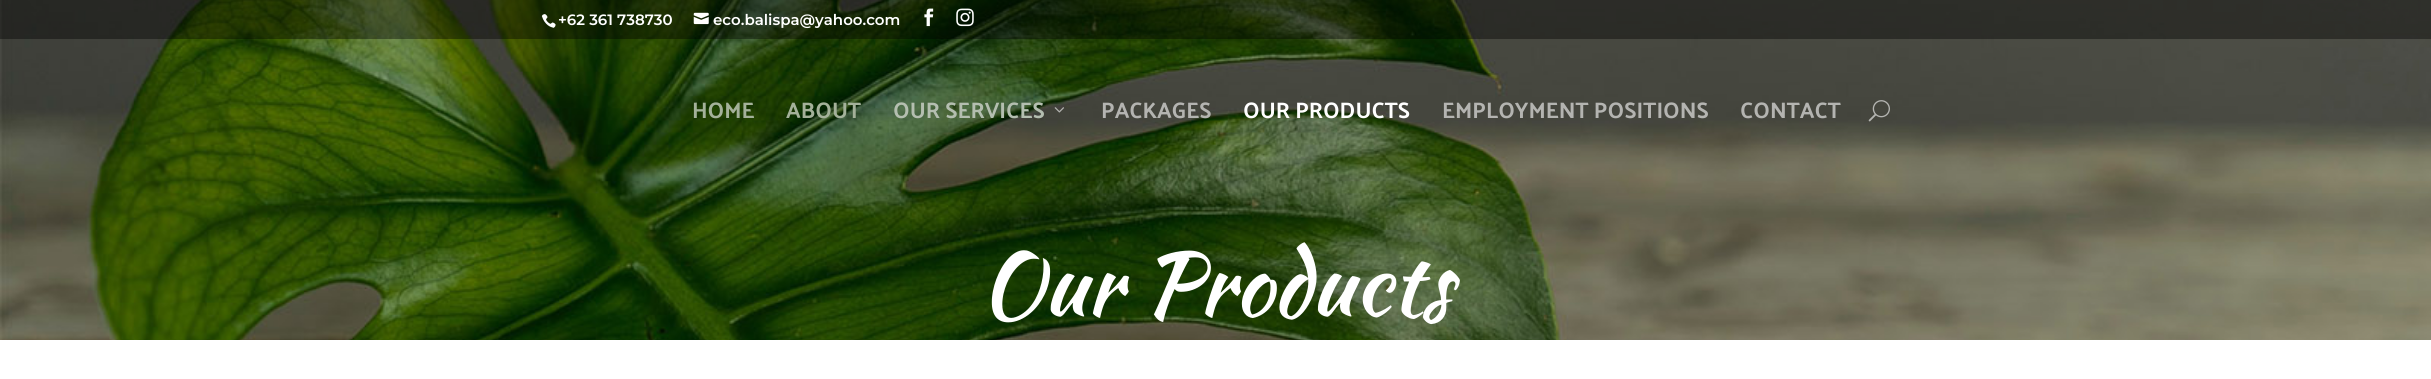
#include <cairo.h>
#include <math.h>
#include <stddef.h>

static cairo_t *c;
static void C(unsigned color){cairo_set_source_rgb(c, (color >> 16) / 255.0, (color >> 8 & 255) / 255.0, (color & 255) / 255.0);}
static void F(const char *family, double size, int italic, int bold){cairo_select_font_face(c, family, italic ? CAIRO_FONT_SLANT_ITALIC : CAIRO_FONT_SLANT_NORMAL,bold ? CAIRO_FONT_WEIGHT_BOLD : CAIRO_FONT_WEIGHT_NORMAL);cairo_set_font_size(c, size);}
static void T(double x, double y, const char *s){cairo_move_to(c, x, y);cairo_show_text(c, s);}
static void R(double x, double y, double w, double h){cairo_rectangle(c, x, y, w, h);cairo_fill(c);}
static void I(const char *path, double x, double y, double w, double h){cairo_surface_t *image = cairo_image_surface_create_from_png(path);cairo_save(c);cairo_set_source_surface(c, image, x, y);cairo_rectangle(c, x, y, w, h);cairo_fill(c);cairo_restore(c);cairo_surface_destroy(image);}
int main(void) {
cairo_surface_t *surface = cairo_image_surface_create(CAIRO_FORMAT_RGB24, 2431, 379);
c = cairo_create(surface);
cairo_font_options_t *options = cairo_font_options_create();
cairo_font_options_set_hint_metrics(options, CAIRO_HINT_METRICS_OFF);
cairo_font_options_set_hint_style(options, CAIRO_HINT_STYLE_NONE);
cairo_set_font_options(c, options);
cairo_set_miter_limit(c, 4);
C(0xffffff);
cairo_paint(c);
I("7.png",0,0,2431,340);
cairo_set_source_rgba(c,0,0,0,0.4);
R(0,0,2431,39);
I("1.png",541,14,15,14);
F("Montserrat Thin",15,0,0);
C(0xffffff);
T(558,25,"+62 361 738730");
I("2.png",693,12,16,13);
T(713,25,"eco.balispa@yahoo.com");
I("3.png",924,8,10,19);
I("4.png",956,8,18,19);
F("Palanquin",22.5,0,1);
C(0xa4b19a);
T(692,118,"HOME");
T(786,118,"ABOUT");
C(0xb4beb0);
T(893,118,"OUR SERVICES");
I("5.png",1054,107,10,6);
C(0xb4b4b1);
T(1101,118,"PACKAGES");
C(0xffffff);
T(1243,118,"OUR PRODUCTS");
C(0xb4b4b1);
T(1442,118,"EMPLOYMENT POSITIONS");
T(1740,118,"CONTACT");
I("6.png",1868,100,22,22);
F("Kaushan Script",87.5,0,0);
C(0xffffff);
T(980,315,"Our Products");
cairo_surface_write_to_png(surface, "o.png");
cairo_font_options_destroy(options);
cairo_destroy(c);
cairo_surface_destroy(surface);
return 0;
}
